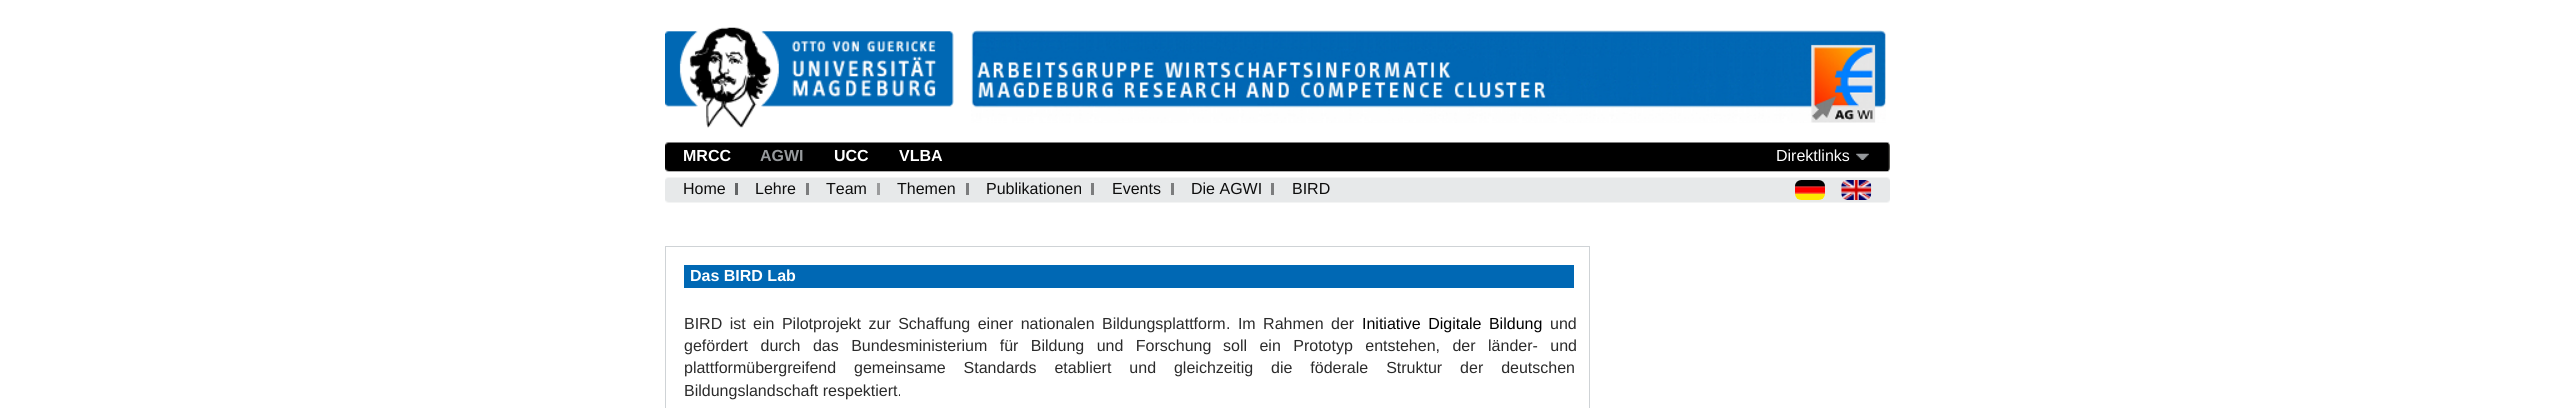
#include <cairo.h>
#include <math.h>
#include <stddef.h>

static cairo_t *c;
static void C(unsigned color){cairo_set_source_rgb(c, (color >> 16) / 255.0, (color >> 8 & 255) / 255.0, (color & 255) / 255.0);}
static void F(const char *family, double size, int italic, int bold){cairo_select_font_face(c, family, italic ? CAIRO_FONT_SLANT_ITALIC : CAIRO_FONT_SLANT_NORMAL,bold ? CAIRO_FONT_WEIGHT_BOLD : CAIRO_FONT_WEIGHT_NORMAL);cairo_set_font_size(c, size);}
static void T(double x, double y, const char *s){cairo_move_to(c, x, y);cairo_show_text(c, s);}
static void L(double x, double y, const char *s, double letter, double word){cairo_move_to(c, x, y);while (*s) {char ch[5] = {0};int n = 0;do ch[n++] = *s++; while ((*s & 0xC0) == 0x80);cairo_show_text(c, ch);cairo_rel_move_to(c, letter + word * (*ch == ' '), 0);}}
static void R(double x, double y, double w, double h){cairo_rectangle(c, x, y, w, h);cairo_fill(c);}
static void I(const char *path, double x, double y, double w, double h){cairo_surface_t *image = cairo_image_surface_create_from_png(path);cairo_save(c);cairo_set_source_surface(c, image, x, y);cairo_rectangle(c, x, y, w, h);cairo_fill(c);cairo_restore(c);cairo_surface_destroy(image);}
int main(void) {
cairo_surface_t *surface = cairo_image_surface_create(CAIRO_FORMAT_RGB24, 2555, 408);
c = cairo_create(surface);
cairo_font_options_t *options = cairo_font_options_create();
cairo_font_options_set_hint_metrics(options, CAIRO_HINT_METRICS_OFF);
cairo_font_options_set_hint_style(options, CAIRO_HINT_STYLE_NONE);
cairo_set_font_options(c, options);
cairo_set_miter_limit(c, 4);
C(0xffffff);
cairo_paint(c);
I("1.png",665,27,289,101);
I("2.png",971,30,915,93);
I("3.png",665,142,1225,63);
F("Liberation Sans",16,0,1);
C(0xffffff);
T(683,161,"MRCC");
C(0x96999c);
T(760,161,"AGWI");
C(0x646667);
R(735,183,3,12);
F("Liberation Sans",16,0,0);
C(0x0d0d0d);
T(683,194,"Home");
C(0x7c7d7e);
R(806,183,3,12);
C(0x0d0d0d);
T(755,194,"Lehre");
C(0x9b9c9d);
R(877,183,3,12);
C(0x0d0d0d);
T(826,194,"Team");
C(0x7c7d7e);
R(966,183,3,12);
C(0x0d0d0d);
T(897,194,"Themen");
C(0x7c7d7e);
R(1091,183,3,12);
C(0x0d0d0d);
T(986,194,"Publikationen");
C(0x7c7d7e);
R(1171,183,3,12);
C(0x0d0d0d);
T(1112,194,"Events");
C(0x7c7d7e);
R(1271,183,3,12);
C(0x0d0d0d);
T(1191,194,"Die AGWI");
T(1292,194,"BIRD");
F("Liberation Sans",16,0,1);
C(0xffffff);
T(834,161,"UCC");
T(899,161,"VLBA");
C(0x000000);
R(1886,143,2,28);
I("4.png",1856,153,13,7);
F("Liberation Sans",16,0,0);
C(0xffffff);
T(1776,161,"Direktlinks");
I("5.png",1795,180,30,20);
I("6.png",1841,180,31,20);
cairo_rectangle(c,665.5,246.5,924,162);
C(0xcfd3d6);
cairo_set_line_width(c,1);
cairo_stroke(c);
C(0x0068b4);
R(684,265,890,23);
F("Liberation Sans",16,0,1);
C(0xffffff);
T(690,281,"Das BIRD Lab");
F("Liberation Sans",16,0,0);
C(0x2b2b2b);
L(684,329,"BIRD ist ein Pilotprojekt zur Schaffung einer nationalen Bildungsplattform",0,3);
L(1226,329,". Im Rahmen der",0,3);
C(0x000000);
L(1362,329,"Initiative Digitale Bildung",0,3);
C(0x2b2b2b);
T(1550,329,"und");
L(684,351,"gefördert durch das Bundesministerium für Bildung und Forschung",0,8);
L(1223,351,"soll ein Prototyp entstehen, der länder- und",0,8);
L(684,373,"plattformübergreifend gemeinsame Standards etabliert und gleichzeitig die föderale Struktur der deutschen",0,13.5);
T(684,396,"Bildungslandschaft respektiert.");
cairo_surface_write_to_png(surface, "o.png");
cairo_font_options_destroy(options);
cairo_destroy(c);
cairo_surface_destroy(surface);
return 0;
}
